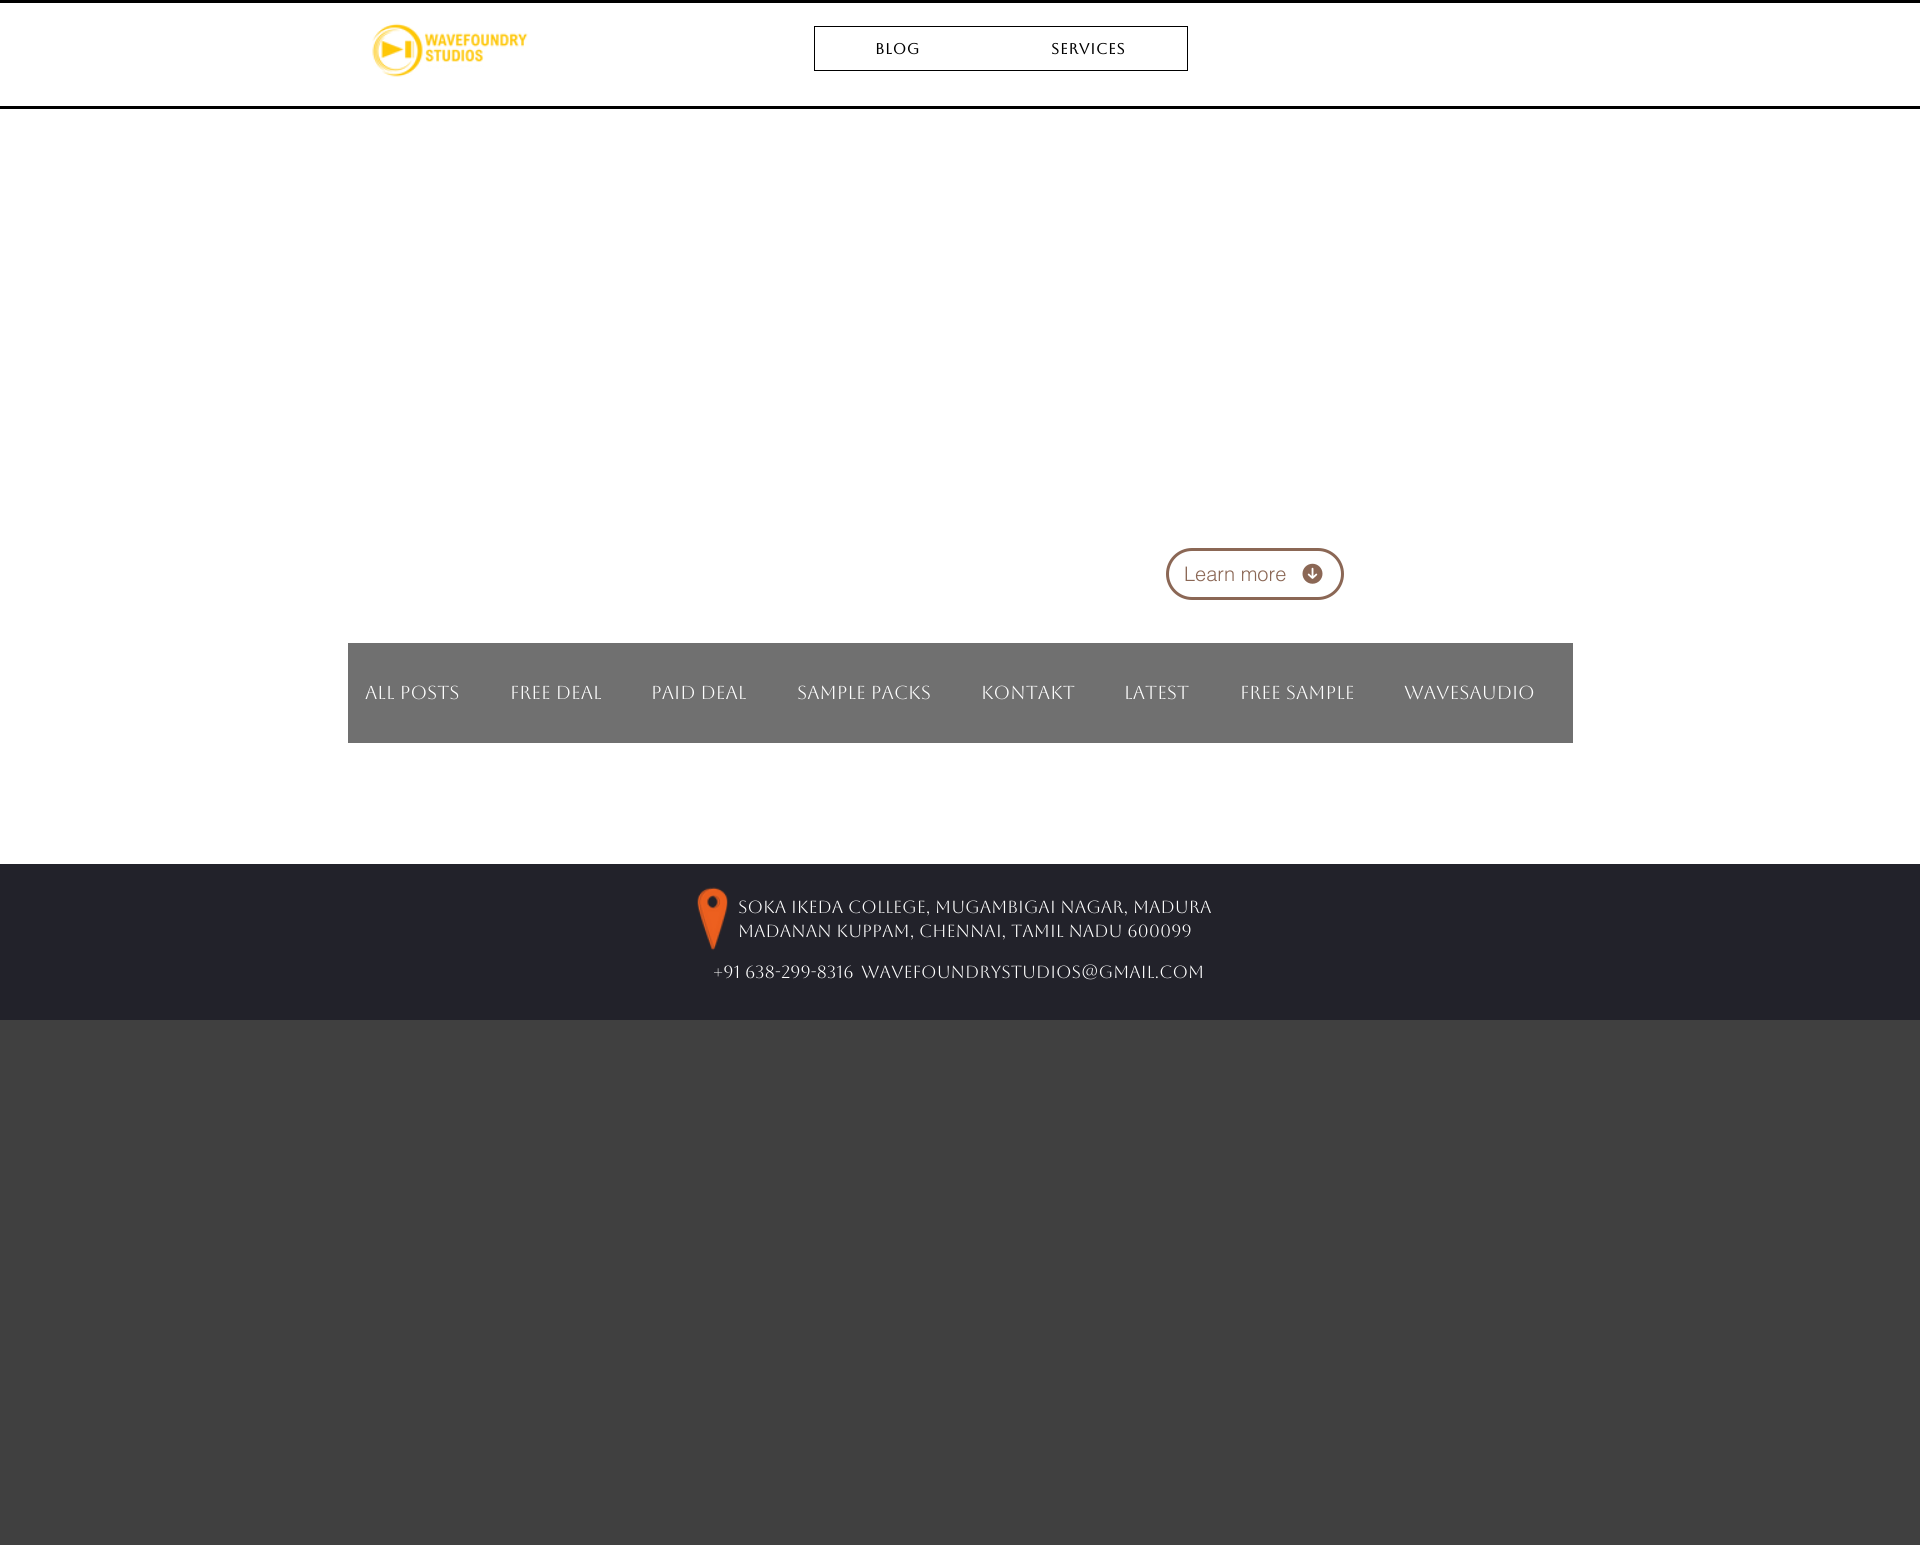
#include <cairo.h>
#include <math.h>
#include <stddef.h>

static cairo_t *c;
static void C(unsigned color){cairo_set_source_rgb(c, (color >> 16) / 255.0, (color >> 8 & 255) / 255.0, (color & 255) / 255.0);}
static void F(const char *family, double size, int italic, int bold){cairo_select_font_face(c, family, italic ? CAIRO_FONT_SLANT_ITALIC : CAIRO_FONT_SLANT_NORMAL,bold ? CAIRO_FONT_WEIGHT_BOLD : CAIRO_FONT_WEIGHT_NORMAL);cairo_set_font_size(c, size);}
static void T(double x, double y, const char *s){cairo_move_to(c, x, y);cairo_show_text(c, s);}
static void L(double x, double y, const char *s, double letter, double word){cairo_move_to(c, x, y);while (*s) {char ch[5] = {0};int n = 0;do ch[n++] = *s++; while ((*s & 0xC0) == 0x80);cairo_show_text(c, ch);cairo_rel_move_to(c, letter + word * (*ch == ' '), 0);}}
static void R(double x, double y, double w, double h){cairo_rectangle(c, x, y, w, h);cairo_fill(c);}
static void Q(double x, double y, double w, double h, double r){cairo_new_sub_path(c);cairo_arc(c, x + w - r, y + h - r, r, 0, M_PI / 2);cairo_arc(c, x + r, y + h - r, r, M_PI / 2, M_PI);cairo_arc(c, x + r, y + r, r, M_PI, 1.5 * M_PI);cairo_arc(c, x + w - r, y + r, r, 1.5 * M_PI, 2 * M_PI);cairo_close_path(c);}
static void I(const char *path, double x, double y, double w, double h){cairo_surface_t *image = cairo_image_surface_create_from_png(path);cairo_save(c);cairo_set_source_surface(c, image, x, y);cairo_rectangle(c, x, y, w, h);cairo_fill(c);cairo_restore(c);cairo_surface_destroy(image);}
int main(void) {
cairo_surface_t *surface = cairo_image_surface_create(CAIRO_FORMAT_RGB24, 1920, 1545);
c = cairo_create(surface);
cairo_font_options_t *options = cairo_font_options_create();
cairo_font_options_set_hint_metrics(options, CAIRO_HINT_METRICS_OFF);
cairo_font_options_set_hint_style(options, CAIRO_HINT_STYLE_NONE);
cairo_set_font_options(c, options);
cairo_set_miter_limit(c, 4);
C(0x404040);
cairo_paint(c);
C(0x000000);
R(0,0,1920,3);
R(0,106,1920,3);
C(0xffffff);
R(0,3,1920,103);
I("1.png",372,23,156,54);
cairo_rectangle(c,814.5,26.5,373,44);
C(0x000000);
cairo_set_line_width(c,1);
cairo_stroke(c);
F("Aboreto",15,0,1);
L(875,54,"BLOG",.75,0);
L(1051,54,"SERVICES",.75,0);
C(0xffffff);
R(0,109,1920,755);
Q(1167.5,549.5,175,49,24.5);
C(0x8b6755);
cairo_set_line_width(c,3);
cairo_stroke(c);
F("helvetica Light",20,0,0);
T(1184,581,"Learn more");
I("2.png",1302,563,21,21);
C(0x707070);
R(348,643,1225,100);
F("Aboreto",18.75,0,0);
C(0xffffff);
T(365,699,"All Posts");
T(510,699,"Free Deal");
T(651,699,"Paid Deal");
T(797,699,"Sample Packs");
T(981,699,"Kontakt");
T(1124,699,"Latest");
T(1240,699,"Free Sample");
T(1404,699,"Wavesaudio");
C(0x22222a);
R(0,864,1920,156);
I("3.png",697,887,31,64);
F("Aboreto",17.5,0,0);
C(0xffffff);
T(738,913,"soka ikeda college, Mugambigai Nagar, Madura");
T(738,937,"Madanan Kuppam, Chennai, Tamil Nadu 600099");
T(713,978,"+91 638-299-8316");
T(861,978,"wavefoundrystudios@gmail.com");
cairo_surface_write_to_png(surface, "o.png");
cairo_font_options_destroy(options);
cairo_destroy(c);
cairo_surface_destroy(surface);
return 0;
}
